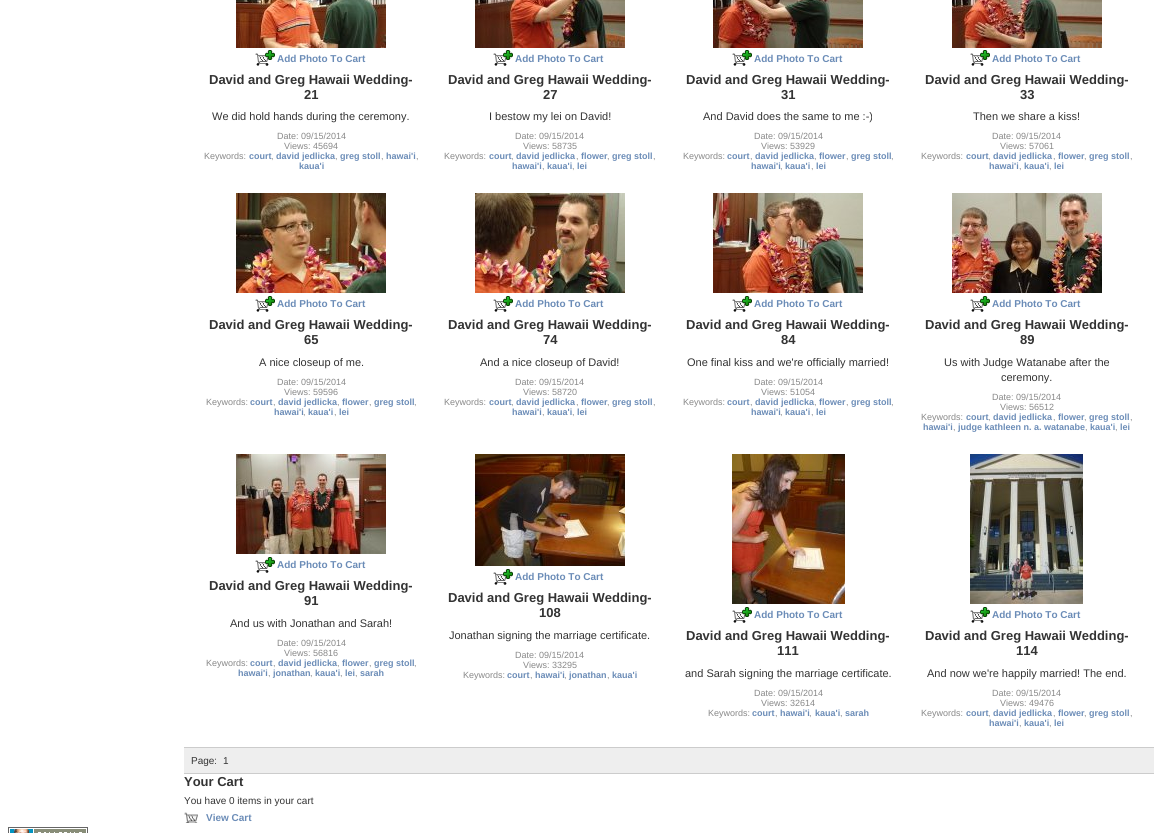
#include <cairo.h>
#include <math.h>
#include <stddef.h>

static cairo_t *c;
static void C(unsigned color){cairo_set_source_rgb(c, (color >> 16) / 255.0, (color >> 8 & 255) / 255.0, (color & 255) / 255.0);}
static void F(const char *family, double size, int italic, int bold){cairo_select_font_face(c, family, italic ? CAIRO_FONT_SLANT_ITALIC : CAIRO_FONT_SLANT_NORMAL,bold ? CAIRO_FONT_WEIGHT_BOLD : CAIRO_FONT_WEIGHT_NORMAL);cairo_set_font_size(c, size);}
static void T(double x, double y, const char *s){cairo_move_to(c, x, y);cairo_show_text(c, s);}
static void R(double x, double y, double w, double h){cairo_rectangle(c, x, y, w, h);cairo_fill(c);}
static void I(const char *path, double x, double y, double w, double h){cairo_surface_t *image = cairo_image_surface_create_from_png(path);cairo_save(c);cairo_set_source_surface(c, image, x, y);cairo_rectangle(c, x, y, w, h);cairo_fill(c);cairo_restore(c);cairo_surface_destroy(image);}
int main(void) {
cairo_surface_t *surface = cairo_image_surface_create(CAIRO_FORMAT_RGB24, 1162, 833);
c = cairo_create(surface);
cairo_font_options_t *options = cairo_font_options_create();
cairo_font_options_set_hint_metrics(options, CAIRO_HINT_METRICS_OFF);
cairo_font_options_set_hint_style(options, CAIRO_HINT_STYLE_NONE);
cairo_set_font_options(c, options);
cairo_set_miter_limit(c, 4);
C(0xffffff);
cairo_paint(c);
C(0xcccccc);
R(184,747,970,1);
I("1.png",236,0,150,48);
I("2.png",255,50,20,16);
F("Liberation Sans",10,0,1);
C(0x6b8cb7);
T(277,62,"Add Photo To Cart");
F("Liberation Sans",13,0,1);
C(0x333333);
T(209,84,"David and Greg Hawaii Wedding-");
T(304,99,"21");
F("Liberation Sans",11,0,0);
T(212,120,"We did hold hands during the ceremony.");
F("Liberation Sans",9,0,0);
C(0x888888);
T(277,139,"Date: 09/15/2014");
T(284,149,"Views: 45694");
T(204,159,"Keywords:");
F("Liberation Sans",9,0,1);
C(0x6b8cb7);
T(249,159,"court");
F("Liberation Sans",9,0,0);
C(0x888888);
T(271,159,",");
F("Liberation Sans",9,0,1);
C(0x6b8cb7);
T(276,159,"david jedlicka");
F("Liberation Sans",9,0,0);
C(0x888888);
T(335,159,",");
F("Liberation Sans",9,0,1);
C(0x6b8cb7);
T(340,159,"greg stoll");
F("Liberation Sans",9,0,0);
C(0x888888);
T(381,159,",");
F("Liberation Sans",9,0,1);
C(0x6b8cb7);
T(386,159,"hawai'i");
F("Liberation Sans",9,0,0);
C(0x888888);
T(416,159,",");
F("Liberation Sans",9,0,1);
C(0x6b8cb7);
T(299,169,"kaua'i");
I("3.png",475,0,150,48);
I("2.png",493,50,20,16);
F("Liberation Sans",10,0,1);
T(515,62,"Add Photo To Cart");
F("Liberation Sans",13,0,1);
C(0x333333);
T(448,84,"David and Greg Hawaii Wedding-");
T(543,99,"27");
F("Liberation Sans",11,0,0);
T(489,120,"I bestow my lei on David!");
F("Liberation Sans",9,0,0);
C(0x888888);
T(515,139,"Date: 09/15/2014");
T(523,149,"Views: 58735");
T(444,159,"Keywords:");
F("Liberation Sans",9,0,1);
C(0x6b8cb7);
T(489,159,"court");
F("Liberation Sans",9,0,0);
C(0x888888);
T(511,159,",");
F("Liberation Sans",9,0,1);
C(0x6b8cb7);
T(516,159,"david jedlicka");
F("Liberation Sans",9,0,0);
C(0x888888);
T(576,159,",");
F("Liberation Sans",9,0,1);
C(0x6b8cb7);
T(581,159,"flower");
F("Liberation Sans",9,0,0);
C(0x888888);
T(607,159,",");
F("Liberation Sans",9,0,1);
C(0x6b8cb7);
T(612,159,"greg stoll");
F("Liberation Sans",9,0,0);
C(0x888888);
T(653,159,",");
F("Liberation Sans",9,0,1);
C(0x6b8cb7);
T(512,169,"hawai'i");
F("Liberation Sans",9,0,0);
C(0x888888);
T(542,169,",");
F("Liberation Sans",9,0,1);
C(0x6b8cb7);
T(547,169,"kaua'i");
F("Liberation Sans",9,0,0);
C(0x888888);
T(572,169,",");
F("Liberation Sans",9,0,1);
C(0x6b8cb7);
T(577,169,"lei");
I("4.png",713,0,150,48);
I("2.png",732,50,20,16);
F("Liberation Sans",10,0,1);
T(754,62,"Add Photo To Cart");
F("Liberation Sans",13,0,1);
C(0x333333);
T(686,84,"David and Greg Hawaii Wedding-");
T(781,99,"31");
F("Liberation Sans",11,0,0);
T(703,120,"And David does the same to me :-)");
F("Liberation Sans",9,0,0);
C(0x888888);
T(754,139,"Date: 09/15/2014");
T(761,149,"Views: 53929");
T(683,159,"Keywords:");
F("Liberation Sans",9,0,1);
C(0x6b8cb7);
T(727,159,"court");
F("Liberation Sans",9,0,0);
C(0x888888);
T(750,159,",");
F("Liberation Sans",9,0,1);
C(0x6b8cb7);
T(755,159,"david jedlicka");
T(819,159,"flower");
T(851,159,"greg stoll");
F("Liberation Sans",9,0,0);
C(0x888888);
T(814,159,",");
T(846,159,",");
T(891,159,",");
F("Liberation Sans",9,0,1);
C(0x6b8cb7);
T(751,169,"hawai'i");
F("Liberation Sans",9,0,0);
C(0x888888);
T(780,169,",");
F("Liberation Sans",9,0,1);
C(0x6b8cb7);
T(785,169,"kaua'i");
F("Liberation Sans",9,0,0);
C(0x888888);
T(811,169,",");
F("Liberation Sans",9,0,1);
C(0x6b8cb7);
T(816,169,"lei");
I("5.png",952,0,150,48);
I("2.png",970,50,20,16);
F("Liberation Sans",10,0,1);
T(992,62,"Add Photo To Cart");
F("Liberation Sans",13,0,1);
C(0x333333);
T(925,84,"David and Greg Hawaii Wedding-");
T(1020,99,"33");
F("Liberation Sans",11,0,0);
T(973,120,"Then we share a kiss!");
F("Liberation Sans",9,0,0);
C(0x888888);
T(992,139,"Date: 09/15/2014");
T(1000,149,"Views: 57061");
T(921,159,"Keywords:");
F("Liberation Sans",9,0,1);
C(0x6b8cb7);
T(966,159,"court");
F("Liberation Sans",9,0,0);
C(0x888888);
T(988,159,",");
F("Liberation Sans",9,0,1);
C(0x6b8cb7);
T(993,159,"david jedlicka");
F("Liberation Sans",9,0,0);
C(0x888888);
T(1053,159,",");
F("Liberation Sans",9,0,1);
C(0x6b8cb7);
T(1058,159,"flower");
F("Liberation Sans",9,0,0);
C(0x888888);
T(1084,159,",");
F("Liberation Sans",9,0,1);
C(0x6b8cb7);
T(1089,159,"greg stoll");
F("Liberation Sans",9,0,0);
C(0x888888);
T(1130,159,",");
F("Liberation Sans",9,0,1);
C(0x6b8cb7);
T(989,169,"hawai'i");
F("Liberation Sans",9,0,0);
C(0x888888);
T(1019,169,",");
F("Liberation Sans",9,0,1);
C(0x6b8cb7);
T(1024,169,"kaua'i");
F("Liberation Sans",9,0,0);
C(0x888888);
T(1049,169,",");
F("Liberation Sans",9,0,1);
C(0x6b8cb7);
T(1054,169,"lei");
I("6.png",236,193,150,100);
I("2.png",255,296,20,16);
F("Liberation Sans",10,0,1);
T(277,307,"Add Photo To Cart");
F("Liberation Sans",13,0,1);
C(0x333333);
T(209,329,"David and Greg Hawaii Wedding-");
T(304,344,"65");
F("Liberation Sans",11,0,0);
T(259,366,"A nice closeup of me.");
F("Liberation Sans",9,0,0);
C(0x888888);
T(277,385,"Date: 09/15/2014");
T(284,395,"Views: 59596");
T(206,405,"Keywords:");
F("Liberation Sans",9,0,1);
C(0x6b8cb7);
T(250,405,"court");
F("Liberation Sans",9,0,0);
C(0x888888);
T(273,405,",");
F("Liberation Sans",9,0,1);
C(0x6b8cb7);
T(278,405,"david jedlicka");
T(342,405,"flower");
T(374,405,"greg stoll");
F("Liberation Sans",9,0,0);
C(0x888888);
T(337,405,",");
T(369,405,",");
T(414,405,",");
F("Liberation Sans",9,0,1);
C(0x6b8cb7);
T(274,415,"hawai'i");
F("Liberation Sans",9,0,0);
C(0x888888);
T(303,415,",");
F("Liberation Sans",9,0,1);
C(0x6b8cb7);
T(308,415,"kaua'i");
F("Liberation Sans",9,0,0);
C(0x888888);
T(334,415,",");
F("Liberation Sans",9,0,1);
C(0x6b8cb7);
T(339,415,"lei");
I("7.png",475,193,150,100);
I("2.png",493,296,20,16);
F("Liberation Sans",10,0,1);
T(515,307,"Add Photo To Cart");
F("Liberation Sans",13,0,1);
C(0x333333);
T(448,329,"David and Greg Hawaii Wedding-");
T(543,344,"74");
F("Liberation Sans",11,0,0);
T(480,366,"And a nice closeup of David!");
F("Liberation Sans",9,0,0);
C(0x888888);
T(515,385,"Date: 09/15/2014");
T(523,395,"Views: 58720");
T(444,405,"Keywords:");
F("Liberation Sans",9,0,1);
C(0x6b8cb7);
T(489,405,"court");
F("Liberation Sans",9,0,0);
C(0x888888);
T(511,405,",");
F("Liberation Sans",9,0,1);
C(0x6b8cb7);
T(516,405,"david jedlicka");
F("Liberation Sans",9,0,0);
C(0x888888);
T(576,405,",");
F("Liberation Sans",9,0,1);
C(0x6b8cb7);
T(581,405,"flower");
F("Liberation Sans",9,0,0);
C(0x888888);
T(607,405,",");
F("Liberation Sans",9,0,1);
C(0x6b8cb7);
T(612,405,"greg stoll");
F("Liberation Sans",9,0,0);
C(0x888888);
T(653,405,",");
F("Liberation Sans",9,0,1);
C(0x6b8cb7);
T(512,415,"hawai'i");
F("Liberation Sans",9,0,0);
C(0x888888);
T(542,415,",");
F("Liberation Sans",9,0,1);
C(0x6b8cb7);
T(547,415,"kaua'i");
F("Liberation Sans",9,0,0);
C(0x888888);
T(572,415,",");
F("Liberation Sans",9,0,1);
C(0x6b8cb7);
T(577,415,"lei");
I("8.png",713,193,150,100);
I("2.png",732,296,20,16);
F("Liberation Sans",10,0,1);
T(754,307,"Add Photo To Cart");
F("Liberation Sans",13,0,1);
C(0x333333);
T(686,329,"David and Greg Hawaii Wedding-");
T(781,344,"84");
F("Liberation Sans",11,0,0);
T(687,366,"One final kiss and we're officially married!");
F("Liberation Sans",9,0,0);
C(0x888888);
T(754,385,"Date: 09/15/2014");
T(761,395,"Views: 51054");
T(683,405,"Keywords:");
F("Liberation Sans",9,0,1);
C(0x6b8cb7);
T(727,405,"court");
F("Liberation Sans",9,0,0);
C(0x888888);
T(750,405,",");
F("Liberation Sans",9,0,1);
C(0x6b8cb7);
T(755,405,"david jedlicka");
T(819,405,"flower");
T(851,405,"greg stoll");
F("Liberation Sans",9,0,0);
C(0x888888);
T(814,405,",");
T(846,405,",");
T(891,405,",");
F("Liberation Sans",9,0,1);
C(0x6b8cb7);
T(751,415,"hawai'i");
F("Liberation Sans",9,0,0);
C(0x888888);
T(780,415,",");
F("Liberation Sans",9,0,1);
C(0x6b8cb7);
T(785,415,"kaua'i");
F("Liberation Sans",9,0,0);
C(0x888888);
T(811,415,",");
F("Liberation Sans",9,0,1);
C(0x6b8cb7);
T(816,415,"lei");
I("9.png",952,193,150,100);
I("2.png",970,296,20,16);
F("Liberation Sans",10,0,1);
T(992,307,"Add Photo To Cart");
F("Liberation Sans",13,0,1);
C(0x333333);
T(925,329,"David and Greg Hawaii Wedding-");
T(1020,344,"89");
F("Liberation Sans",11,0,0);
T(944,366,"Us with Judge Watanabe after the");
T(1001,381,"ceremony.");
F("Liberation Sans",9,0,0);
C(0x888888);
T(992,400,"Date: 09/15/2014");
T(1000,410,"Views: 56512");
T(921,420,"Keywords:");
F("Liberation Sans",9,0,1);
C(0x6b8cb7);
T(966,420,"court");
F("Liberation Sans",9,0,0);
C(0x888888);
T(988,420,",");
F("Liberation Sans",9,0,1);
C(0x6b8cb7);
T(993,420,"david jedlicka");
F("Liberation Sans",9,0,0);
C(0x888888);
T(1053,420,",");
F("Liberation Sans",9,0,1);
C(0x6b8cb7);
T(1058,420,"flower");
F("Liberation Sans",9,0,0);
C(0x888888);
T(1084,420,",");
F("Liberation Sans",9,0,1);
C(0x6b8cb7);
T(1089,420,"greg stoll");
F("Liberation Sans",9,0,0);
C(0x888888);
T(1130,420,",");
F("Liberation Sans",9,0,1);
C(0x6b8cb7);
T(923,430,"hawai'i");
F("Liberation Sans",9,0,0);
C(0x888888);
T(953,430,",");
F("Liberation Sans",9,0,1);
C(0x6b8cb7);
T(958,430,"judge kathleen n. a. watanabe");
F("Liberation Sans",9,0,0);
C(0x888888);
T(1085,430,",");
F("Liberation Sans",9,0,1);
C(0x6b8cb7);
T(1090,430,"kaua'i");
F("Liberation Sans",9,0,0);
C(0x888888);
T(1115,430,",");
F("Liberation Sans",9,0,1);
C(0x6b8cb7);
T(1120,430,"lei");
I("10.png",236,454,150,100);
I("2.png",255,557,20,16);
F("Liberation Sans",10,0,1);
T(277,568,"Add Photo To Cart");
F("Liberation Sans",13,0,1);
C(0x333333);
T(209,590,"David and Greg Hawaii Wedding-");
T(304,605,"91");
F("Liberation Sans",11,0,0);
T(230,627,"And us with Jonathan and Sarah!");
F("Liberation Sans",9,0,0);
C(0x888888);
T(277,646,"Date: 09/15/2014");
T(284,656,"Views: 56816");
T(206,666,"Keywords:");
F("Liberation Sans",9,0,1);
C(0x6b8cb7);
T(250,666,"court");
F("Liberation Sans",9,0,0);
C(0x888888);
T(273,666,",");
F("Liberation Sans",9,0,1);
C(0x6b8cb7);
T(278,666,"david jedlicka");
T(342,666,"flower");
T(374,666,"greg stoll");
F("Liberation Sans",9,0,0);
C(0x888888);
T(337,666,",");
T(369,666,",");
T(414,666,",");
F("Liberation Sans",9,0,1);
C(0x6b8cb7);
T(238,676,"hawai'i");
F("Liberation Sans",9,0,0);
C(0x888888);
T(268,676,",");
F("Liberation Sans",9,0,1);
C(0x6b8cb7);
T(273,676,"jonathan");
F("Liberation Sans",9,0,0);
C(0x888888);
T(310,676,",");
F("Liberation Sans",9,0,1);
C(0x6b8cb7);
T(315,676,"kaua'i");
F("Liberation Sans",9,0,0);
C(0x888888);
T(340,676,",");
F("Liberation Sans",9,0,1);
C(0x6b8cb7);
T(345,676,"lei");
F("Liberation Sans",9,0,0);
C(0x888888);
T(355,676,",");
F("Liberation Sans",9,0,1);
C(0x6b8cb7);
T(360,676,"sarah");
I("11.png",475,454,150,112);
I("2.png",493,569,20,16);
F("Liberation Sans",10,0,1);
T(515,580,"Add Photo To Cart");
F("Liberation Sans",13,0,1);
C(0x333333);
T(448,602,"David and Greg Hawaii Wedding-");
T(539,617,"108");
F("Liberation Sans",11,0,0);
T(449,639,"Jonathan signing the marriage certificate.");
F("Liberation Sans",9,0,0);
C(0x888888);
T(515,658,"Date: 09/15/2014");
T(523,668,"Views: 33295");
T(463,678,"Keywords:");
F("Liberation Sans",9,0,1);
C(0x6b8cb7);
T(507,678,"court");
F("Liberation Sans",9,0,0);
C(0x888888);
T(530,678,",");
F("Liberation Sans",9,0,1);
C(0x6b8cb7);
T(535,678,"hawai'i");
F("Liberation Sans",9,0,0);
C(0x888888);
T(564,678,",");
F("Liberation Sans",9,0,1);
C(0x6b8cb7);
T(569,678,"jonathan");
F("Liberation Sans",9,0,0);
C(0x888888);
T(607,678,",");
F("Liberation Sans",9,0,1);
C(0x6b8cb7);
T(612,678,"kaua'i");
I("12.png",732,454,113,150);
I("2.png",732,607,20,16);
F("Liberation Sans",10,0,1);
T(754,618,"Add Photo To Cart");
F("Liberation Sans",13,0,1);
C(0x333333);
T(686,640,"David and Greg Hawaii Wedding-");
T(777,655,"111");
F("Liberation Sans",11,0,0);
T(685,677,"and Sarah signing the marriage certificate.");
F("Liberation Sans",9,0,0);
C(0x888888);
T(754,696,"Date: 09/15/2014");
T(761,706,"Views: 32614");
T(708,716,"Keywords:");
F("Liberation Sans",9,0,1);
C(0x6b8cb7);
T(752,716,"court");
F("Liberation Sans",9,0,0);
C(0x888888);
T(775,716,",");
F("Liberation Sans",9,0,1);
C(0x6b8cb7);
T(780,716,"hawai'i");
F("Liberation Sans",9,0,0);
C(0x888888);
T(809,716,",");
F("Liberation Sans",9,0,1);
C(0x6b8cb7);
T(815,716,"kaua'i");
F("Liberation Sans",9,0,0);
C(0x888888);
T(840,716,",");
F("Liberation Sans",9,0,1);
C(0x6b8cb7);
T(845,716,"sarah");
I("13.png",970,454,113,150);
I("2.png",970,607,20,16);
F("Liberation Sans",10,0,1);
T(992,618,"Add Photo To Cart");
F("Liberation Sans",13,0,1);
C(0x333333);
T(925,640,"David and Greg Hawaii Wedding-");
T(1016,655,"114");
F("Liberation Sans",11,0,0);
T(927,677,"And now we're happily married! The end.");
F("Liberation Sans",9,0,0);
C(0x888888);
T(992,696,"Date: 09/15/2014");
T(1000,706,"Views: 49476");
T(921,716,"Keywords:");
F("Liberation Sans",9,0,1);
C(0x6b8cb7);
T(966,716,"court");
F("Liberation Sans",9,0,0);
C(0x888888);
T(988,716,",");
F("Liberation Sans",9,0,1);
C(0x6b8cb7);
T(993,716,"david jedlicka");
F("Liberation Sans",9,0,0);
C(0x888888);
T(1053,716,",");
F("Liberation Sans",9,0,1);
C(0x6b8cb7);
T(1058,716,"flower");
F("Liberation Sans",9,0,0);
C(0x888888);
T(1084,716,",");
F("Liberation Sans",9,0,1);
C(0x6b8cb7);
T(1089,716,"greg stoll");
F("Liberation Sans",9,0,0);
C(0x888888);
T(1130,716,",");
F("Liberation Sans",9,0,1);
C(0x6b8cb7);
T(989,726,"hawai'i");
F("Liberation Sans",9,0,0);
C(0x888888);
T(1019,726,",");
F("Liberation Sans",9,0,1);
C(0x6b8cb7);
T(1024,726,"kaua'i");
F("Liberation Sans",9,0,0);
C(0x888888);
T(1049,726,",");
F("Liberation Sans",9,0,1);
C(0x6b8cb7);
T(1054,726,"lei");
C(0xeeeeee);
R(184,748,970,25);
C(0xcccccc);
R(184,773,970,1);
F("Liberation Sans",10,0,0);
C(0x333333);
T(191,764,"Page:");
T(223,764,"1");
F("Liberation Sans",13,0,1);
T(184,786,"Your Cart");
F("Liberation Sans",10,0,0);
T(184,804,"You have 0 items in your cart");
I("14.png",184,812,14,11);
F("Liberation Sans",10,0,1);
C(0x6b8cb7);
T(206,821,"View Cart");
I("15.png",8,827,80,6);
cairo_surface_write_to_png(surface, "o.png");
cairo_font_options_destroy(options);
cairo_destroy(c);
cairo_surface_destroy(surface);
return 0;
}
